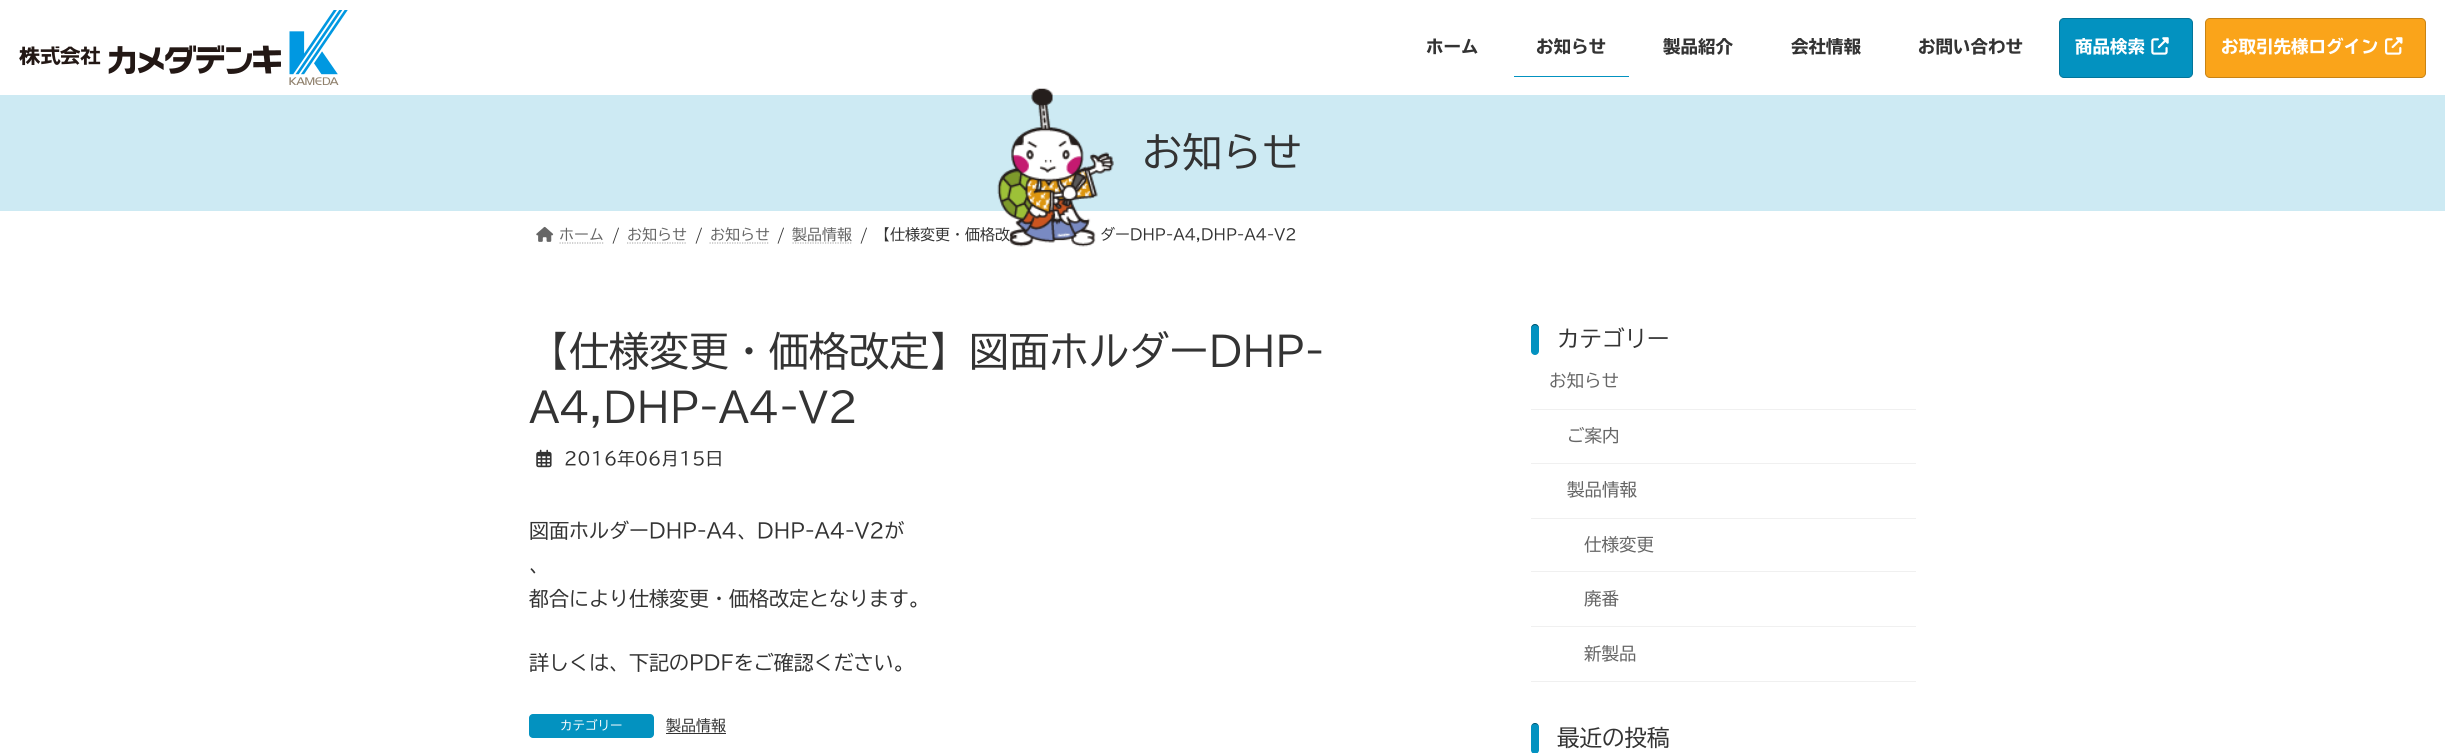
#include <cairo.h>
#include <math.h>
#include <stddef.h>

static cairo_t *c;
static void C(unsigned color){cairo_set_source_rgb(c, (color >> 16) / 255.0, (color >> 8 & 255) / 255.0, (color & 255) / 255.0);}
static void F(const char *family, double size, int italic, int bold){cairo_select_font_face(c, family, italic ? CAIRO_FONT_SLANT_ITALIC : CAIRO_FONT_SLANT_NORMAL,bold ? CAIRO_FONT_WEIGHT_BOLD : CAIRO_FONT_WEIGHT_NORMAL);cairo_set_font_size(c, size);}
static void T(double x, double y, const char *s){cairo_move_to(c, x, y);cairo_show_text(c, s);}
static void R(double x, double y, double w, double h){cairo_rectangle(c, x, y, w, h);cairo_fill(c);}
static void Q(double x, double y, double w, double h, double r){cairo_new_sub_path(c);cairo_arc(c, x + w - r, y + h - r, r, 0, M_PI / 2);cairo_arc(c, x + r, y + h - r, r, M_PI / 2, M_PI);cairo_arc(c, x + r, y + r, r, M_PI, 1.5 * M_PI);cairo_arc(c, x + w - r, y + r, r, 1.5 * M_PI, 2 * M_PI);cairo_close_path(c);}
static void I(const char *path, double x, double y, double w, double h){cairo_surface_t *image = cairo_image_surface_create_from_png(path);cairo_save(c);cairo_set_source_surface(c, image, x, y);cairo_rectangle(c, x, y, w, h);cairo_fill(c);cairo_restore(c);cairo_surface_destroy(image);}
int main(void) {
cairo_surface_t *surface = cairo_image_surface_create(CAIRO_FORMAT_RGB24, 2445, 753);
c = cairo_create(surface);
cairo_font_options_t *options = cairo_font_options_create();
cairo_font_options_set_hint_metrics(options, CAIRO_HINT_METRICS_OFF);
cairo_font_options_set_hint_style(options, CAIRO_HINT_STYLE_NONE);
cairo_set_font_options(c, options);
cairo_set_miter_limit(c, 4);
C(0xffffff);
cairo_paint(c);
I("1.png",19,10,329,75);
F("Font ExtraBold",17.5,0,0);
C(0x333333);
T(1426,53,"ホーム");
T(1536,53,"お知らせ");
C(0x0392c0);
R(1514,76,115,1);
C(0x333333);
T(1663,53,"製品紹介");
T(1791,53,"会社情報");
T(1918,53,"お問い合わせ");
C(0x0392c0);
Q(2059.5,18.5,133,59,4.5);
cairo_fill_preserve(c);
C(0x02759a);
cairo_set_line_width(c,1);
cairo_stroke(c);
C(0xffffff);
T(2075,53,"商品検索");
I("2.png",2151,37,18,18);
C(0xfaa41a);
Q(2205.5,18.5,220,59,4.5);
cairo_fill_preserve(c);
C(0xc88314);
cairo_stroke(c);
C(0xffffff);
T(2221,53,"お取引先様ログイン");
I("3.png",2385,37,18,18);
C(0xcdeaf3);
R(0,95,2445,116);
F("Font",15,0,0);
C(0x333333);
T(875,240,"【仕様変更・価格改");
T(1100,240,"ダーDHP-A4,DHP-A4-V2");
I("4.png",997,88,117,159);
F("Font",40,0,0);
T(1142,167,"お知らせ");
I("5.png",536,226,18,16);
F("Font",15,0,0);
C(0x666666);
T(559,240,"ホーム");
cairo_new_path(c);
cairo_move_to(c,559.5,243);
cairo_line_to(c,604.5,243);
C(0xb3b3b3);
cairo_set_line_width(c,1.2);
cairo_set_dash(c,(double[]){1.25,1.25},2,0);
cairo_stroke(c);
C(0x333333);
T(612,240,"/");
C(0x666666);
T(627,240,"お知らせ");
cairo_new_path(c);
cairo_move_to(c,627,243);
cairo_line_to(c,687,243);
C(0xb3b3b3);
cairo_stroke(c);
C(0x333333);
T(695,240,"/");
C(0x666666);
T(710,240,"お知らせ");
cairo_new_path(c);
cairo_move_to(c,709.5,243);
cairo_line_to(c,769.5,243);
C(0xb3b3b3);
cairo_stroke(c);
C(0x333333);
T(777,240,"/");
C(0x666666);
T(792,240,"製品情報");
cairo_new_path(c);
cairo_move_to(c,792.5,243);
cairo_line_to(c,852.5,243);
C(0xb3b3b3);
cairo_stroke(c);
C(0x333333);
T(860,240,"/");
F("Font",40,0,0);
T(529,366,"【仕様変更・価格改定】図面ホルダーDHP-");
T(529,422,"A4,DHP-A4-V2");
I("6.png",536,449,16,19);
F("Font",17.5,0,0);
T(564,465,"2016年06月15日");
F("Font",20,0,0);
T(529,538,"図面ホルダーDHP-A4、DHP-A4-V2が");
T(529,572,"、");
T(529,606,"都合により仕様変更・価格改定となります。");
T(529,670,"詳しくは、下記のPDFをご確認ください。");
C(0x0392c0);
Q(529,714,125,24,4);
cairo_fill(c);
F("Font",12.5,0,0);
C(0xffffff);
T(560,730,"カテゴリー");
F("Font",15,0,0);
C(0x333333);
T(666,731,"製品情報");
R(666,733,60,1);
C(0x0392c0);
Q(1531,324,8,31,4);
cairo_fill(c);
cairo_set_source_rgba(c,0,0,0,0.5);
cairo_new_path(c);
cairo_move_to(c,1535,325);
cairo_curve_to(c,1537,325,1539,327,1539,329);
cairo_curve_to(c,1539,322.5,1531,322.5,1531,329);
cairo_curve_to(c,1531,327,1533,325,1535,325);
cairo_close_path(c);
cairo_fill(c);
F("Font",22.5,0,0);
C(0x333333);
T(1557,347,"カテゴリー");
C(0xf0f0f0);
R(1531,409,385,1);
F("Font",17.5,0,0);
C(0x666666);
T(1549,387,"お知らせ");
C(0xf0f0f0);
R(1531,463,385,1);
C(0x666666);
T(1567,442,"ご案内");
C(0xf0f0f0);
R(1531,518,385,1);
C(0x666666);
T(1567,496,"製品情報");
C(0xf0f0f0);
R(1531,571,385,1);
C(0x666666);
T(1584,551,"仕様変更");
C(0xf0f0f0);
R(1531,626,385,1);
C(0x666666);
T(1584,605,"廃番");
C(0xf0f0f0);
R(1531,681,385,1);
C(0x666666);
T(1584,660,"新製品");
C(0x0392c0);
Q(1531,723,8,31,4);
cairo_fill(c);
cairo_set_source_rgba(c,0,0,0,0.5);
cairo_new_path(c);
cairo_move_to(c,1535,724);
cairo_curve_to(c,1537,724,1539,725,1539,728);
cairo_curve_to(c,1539,721.5,1531,721.5,1531,728);
cairo_curve_to(c,1531,725,1533,724,1535,724);
cairo_close_path(c);
cairo_fill(c);
F("Font",22.5,0,0);
C(0x333333);
T(1557,746,"最近の投稿");
cairo_surface_write_to_png(surface, "o.png");
cairo_font_options_destroy(options);
cairo_destroy(c);
cairo_surface_destroy(surface);
return 0;
}
